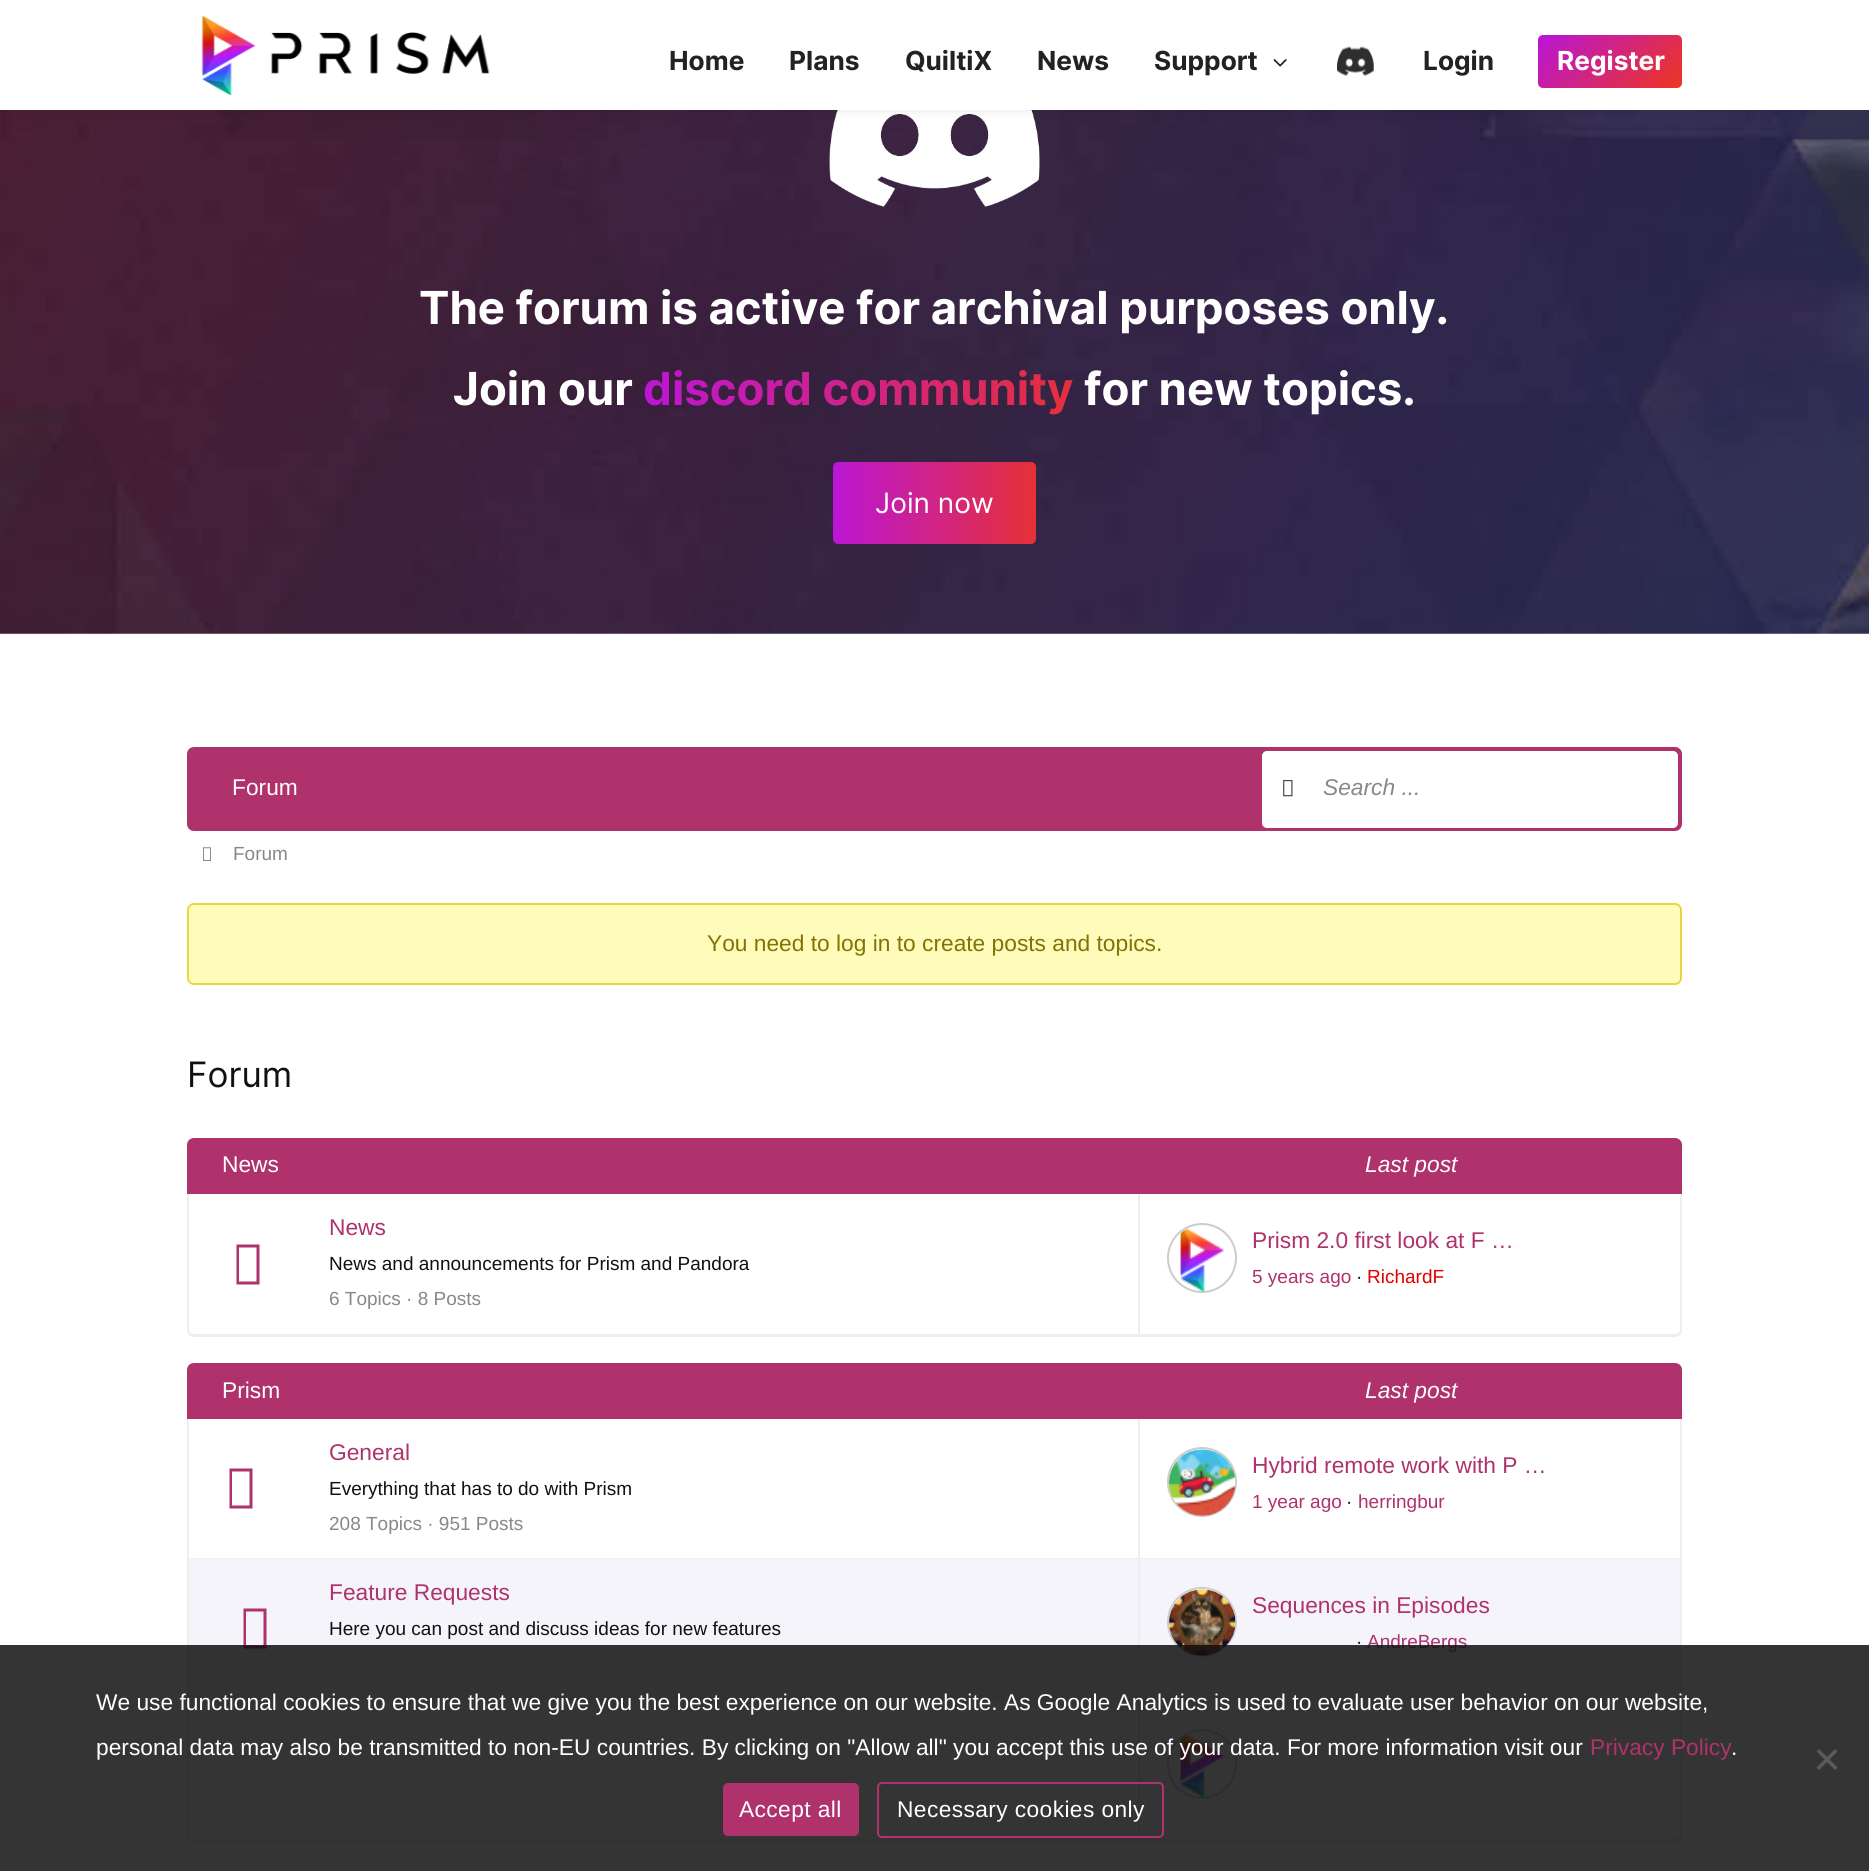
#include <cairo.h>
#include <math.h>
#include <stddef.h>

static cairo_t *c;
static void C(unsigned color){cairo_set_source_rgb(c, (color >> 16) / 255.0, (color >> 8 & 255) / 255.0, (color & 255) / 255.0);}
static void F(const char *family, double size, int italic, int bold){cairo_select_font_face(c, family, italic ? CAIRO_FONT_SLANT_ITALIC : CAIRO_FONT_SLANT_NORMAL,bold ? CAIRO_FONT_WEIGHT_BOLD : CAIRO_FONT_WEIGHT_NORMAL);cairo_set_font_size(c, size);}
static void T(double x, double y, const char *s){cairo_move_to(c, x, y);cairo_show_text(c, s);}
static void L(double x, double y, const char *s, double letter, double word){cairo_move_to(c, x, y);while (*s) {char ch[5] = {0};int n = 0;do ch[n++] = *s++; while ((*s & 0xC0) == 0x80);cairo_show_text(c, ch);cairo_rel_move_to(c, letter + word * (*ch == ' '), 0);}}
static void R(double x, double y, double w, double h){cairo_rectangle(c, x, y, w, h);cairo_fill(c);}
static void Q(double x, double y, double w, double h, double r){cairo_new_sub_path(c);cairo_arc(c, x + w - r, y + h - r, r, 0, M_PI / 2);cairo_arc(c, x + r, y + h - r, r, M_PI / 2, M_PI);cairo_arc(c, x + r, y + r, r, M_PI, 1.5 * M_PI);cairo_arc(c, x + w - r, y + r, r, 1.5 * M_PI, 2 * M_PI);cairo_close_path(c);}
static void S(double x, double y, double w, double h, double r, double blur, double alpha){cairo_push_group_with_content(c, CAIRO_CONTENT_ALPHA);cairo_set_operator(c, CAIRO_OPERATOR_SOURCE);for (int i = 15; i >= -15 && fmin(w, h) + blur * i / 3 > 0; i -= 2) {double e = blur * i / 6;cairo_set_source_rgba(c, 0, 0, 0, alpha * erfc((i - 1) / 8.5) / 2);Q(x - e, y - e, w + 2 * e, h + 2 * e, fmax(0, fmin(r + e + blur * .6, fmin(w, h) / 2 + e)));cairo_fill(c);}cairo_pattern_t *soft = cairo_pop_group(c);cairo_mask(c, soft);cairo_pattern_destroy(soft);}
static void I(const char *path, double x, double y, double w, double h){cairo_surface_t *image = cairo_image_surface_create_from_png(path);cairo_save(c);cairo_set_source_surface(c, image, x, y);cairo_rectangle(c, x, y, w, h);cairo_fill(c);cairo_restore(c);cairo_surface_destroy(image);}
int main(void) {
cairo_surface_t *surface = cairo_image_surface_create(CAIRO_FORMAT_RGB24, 1869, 1871);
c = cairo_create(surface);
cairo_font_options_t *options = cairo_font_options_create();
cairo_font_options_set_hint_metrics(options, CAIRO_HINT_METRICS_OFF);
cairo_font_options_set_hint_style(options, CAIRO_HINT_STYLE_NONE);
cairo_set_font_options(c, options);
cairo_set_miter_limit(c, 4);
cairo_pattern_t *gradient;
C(0xffffff);
cairo_paint(c);
I("4.png",0,110,1869,524);
I("5.png",829,110,211,97);
C(0x000000);
S(0,0,1869,110,0,6,.1);
C(0xffffff);
R(0,0,1869,110);
I("1.png",201,15,289,81);
F("Inter",26.25,0,1);
C(0x222222);
T(669,70,"Home");
T(789,70,"Plans");
T(905,70,"QuiltiX");
T(1037,70,"News");
T(1154,70,"Support");
I("2.png",1273,59,14,8);
I("3.png",1337,46,37,30);
T(1423,70,"Login");
gradient = cairo_pattern_create_linear(1561,12,1659,110);
cairo_pattern_add_color_stop_rgba(gradient,0,0.722,0.082,0.851,1);
cairo_pattern_add_color_stop_rgba(gradient,1,0.929,0.212,0.118,1);
cairo_set_source(c,gradient);
cairo_pattern_destroy(gradient);
Q(1538,35,144,53,5);
cairo_fill(c);
C(0xffffff);
T(1557,70,"Register");
F("Inter",45.5,0,1);
T(419,324,"The forum is active for archival purposes only.");
T(453,405,"Join our");
gradient = cairo_pattern_create_linear(643,389,1084,389);
cairo_pattern_add_color_stop_rgba(gradient,0,0.733,0.086,0.835,1);
cairo_pattern_add_color_stop_rgba(gradient,1,0.902,0.192,0.212,1);
cairo_set_source(c,gradient);
cairo_pattern_destroy(gradient);
T(643,405,"discord community");
C(0xffffff);
T(1084,405,"for new topics.");
gradient = cairo_pattern_create_linear(833,503,1036,503);
cairo_pattern_add_color_stop_rgba(gradient,0,0.733,0.086,0.835,1);
cairo_pattern_add_color_stop_rgba(gradient,1,0.902,0.192,0.212,1);
cairo_set_source(c,gradient);
cairo_pattern_destroy(gradient);
Q(833,462,203,82,5);
cairo_fill(c);
F("Inter",28,0,0);
C(0xffffff);
T(875,513,"Join now");
C(0xaf326d);
Q(187,747,1495,84,7);
cairo_fill(c);
F("Liberation Sans",22.75,0,0);
C(0xffffff);
T(232,795,"Forum");
Q(1262,751,416,77,5);
cairo_fill(c);
I("6.png",1283,780,10,17);
F("Liberation Sans",22.75,1,0);
C(0x888888);
T(1323,795,"Search ...");
I("7.png",203,847,8,14);
F("Liberation Sans",19,0,0);
T(233,860,"Forum");
C(0xfffbbb);
Q(188,904,1493,80,6);
cairo_fill_preserve(c);
C(0xead643);
cairo_stroke(c);
F("Liberation Sans",22.75,0,0);
C(0x827302);
T(707,951,"You need to log in to create posts and topics.");
F("Inter",35,0,0);
C(0x111111);
T(187,1087,"Forum");
C(0xaf326d);
cairo_new_path(c);
cairo_move_to(c,194,1138);
cairo_line_to(c,1675,1138);
cairo_curve_to(c,1679,1138,1682,1141,1682,1145);
cairo_line_to(c,1682,1194);
cairo_line_to(c,187,1194);
cairo_line_to(c,187,1145);
cairo_curve_to(c,187,1141,190,1138,194,1138);
cairo_close_path(c);
cairo_fill(c);
F("Liberation Sans",22.75,0,0);
C(0xffffff);
T(222,1172,"News");
F("Liberation Sans",22.75,1,0);
T(1365,1172,"Last post");
C(0xeeeeee);
cairo_set_fill_rule(c,CAIRO_FILL_RULE_EVEN_ODD);
cairo_new_path(c);
cairo_move_to(c,187,1194);
cairo_line_to(c,1682,1194);
cairo_line_to(c,1682,1330);
cairo_curve_to(c,1682,1334,1679,1337,1675,1337);
cairo_line_to(c,194,1337);
cairo_curve_to(c,190,1337,187,1334,187,1330);
cairo_close_path(c);
cairo_move_to(c,189,1194);
cairo_line_to(c,1680,1194);
cairo_line_to(c,1680,1330);
cairo_curve_to(c,1680,1332,1678,1334,1675,1334);
cairo_line_to(c,194,1334);
cairo_curve_to(c,191,1334,189,1332,189,1330);
cairo_close_path(c);
cairo_fill(c);
C(0xaf326d);
cairo_set_fill_rule(c,CAIRO_FILL_RULE_WINDING);
cairo_new_path(c);
cairo_move_to(c,236.5,1284.5);
cairo_line_to(c,236.5,1244.5);
cairo_line_to(c,259.5,1244.5);
cairo_line_to(c,259.5,1284.5);
cairo_close_path(c);
cairo_move_to(c,239,1281.5);
cairo_line_to(c,256.5,1281.5);
cairo_line_to(c,256.5,1247.5);
cairo_line_to(c,239,1247.5);
cairo_close_path(c);
cairo_fill(c);
F("Liberation Sans",22.75,0,0);
T(329,1235,"News");
F("Liberation Sans",19,0,0);
C(0x111111);
T(329,1270,"News and announcements for Prism and Pandora");
C(0x888888);
T(329,1305,"6 Topics · 8 Posts");
C(0xeeeeee);
R(1138,1194,2,140);
cairo_new_path(c);
cairo_arc(c,1202,1258,34,0,2 * M_PI);
C(0xcccccc);
cairo_stroke(c);
I("8.png",1180,1228,45,64);
F("Liberation Sans",22.75,0,0);
C(0xaf326d);
T(1252,1248,"Prism 2.0 first look at F …");
F("Liberation Sans",19,0,0);
T(1252,1283,"5 years ago");
C(0x111111);
T(1356,1283,"·");
C(0xe00000);
T(1367,1283,"RichardF");
C(0xaf326d);
cairo_new_path(c);
cairo_move_to(c,194,1363);
cairo_line_to(c,1675,1363);
cairo_curve_to(c,1679,1363,1682,1366,1682,1370);
cairo_line_to(c,1682,1419);
cairo_line_to(c,187,1419);
cairo_line_to(c,187,1370);
cairo_curve_to(c,187,1366,190,1363,194,1363);
cairo_close_path(c);
cairo_fill(c);
F("Liberation Sans",22.75,0,0);
C(0xffffff);
T(222,1398,"Prism");
F("Liberation Sans",22.75,1,0);
T(1365,1398,"Last post");
C(0xeeeeee);
cairo_set_fill_rule(c,CAIRO_FILL_RULE_EVEN_ODD);
cairo_new_path(c);
cairo_move_to(c,187,1419);
cairo_line_to(c,1682,1419);
cairo_line_to(c,1682,1836);
cairo_curve_to(c,1682,1840,1679,1843,1675,1843);
cairo_line_to(c,194,1843);
cairo_curve_to(c,190,1843,187,1840,187,1836);
cairo_close_path(c);
cairo_move_to(c,189,1419);
cairo_line_to(c,1680,1419);
cairo_line_to(c,1680,1836);
cairo_curve_to(c,1680,1838,1678,1839,1675,1839);
cairo_line_to(c,194,1839);
cairo_curve_to(c,191,1839,189,1838,189,1836);
cairo_close_path(c);
cairo_fill(c);
R(189,1558,1491,1);
C(0xaf326d);
cairo_set_fill_rule(c,CAIRO_FILL_RULE_WINDING);
cairo_new_path(c);
cairo_move_to(c,229.5,1508.5);
cairo_line_to(c,229.5,1468.5);
cairo_line_to(c,252.5,1468.5);
cairo_line_to(c,252.5,1508.5);
cairo_close_path(c);
cairo_move_to(c,232,1505.5);
cairo_line_to(c,249.5,1505.5);
cairo_line_to(c,249.5,1471.5);
cairo_line_to(c,232,1471.5);
cairo_close_path(c);
cairo_fill(c);
F("Liberation Sans",22.75,0,0);
T(329,1460,"General");
F("Liberation Sans",19,0,0);
C(0x111111);
T(329,1495,"Everything that has to do with Prism");
C(0x888888);
T(329,1530,"208 Topics · 951 Posts");
C(0xeeeeee);
R(1138,1419,2,139);
cairo_new_path(c);
cairo_arc(c,1202,1482,34,0,2 * M_PI);
C(0xcccccc);
cairo_stroke(c);
I("9.png",1169,1449,67,67);
F("Liberation Sans",22.75,0,0);
C(0xaf326d);
T(1252,1473,"Hybrid remote work with P …");
F("Liberation Sans",19,0,0);
T(1252,1508,"1 year ago");
C(0x111111);
T(1346,1508,"·");
C(0xaf326d);
T(1358,1508,"herringbur");
C(0xf4f4fa);
R(189,1559,1491,139);
C(0xeeeeee);
R(189,1698,1491,2);
C(0xaf326d);
cairo_new_path(c);
cairo_move_to(c,243.5,1648.5);
cairo_line_to(c,243.5,1608.5);
cairo_line_to(c,266.5,1608.5);
cairo_line_to(c,266.5,1648.5);
cairo_close_path(c);
cairo_move_to(c,246,1645.5);
cairo_line_to(c,263.5,1645.5);
cairo_line_to(c,263.5,1611.5);
cairo_line_to(c,246,1611.5);
cairo_close_path(c);
cairo_fill(c);
F("Liberation Sans",22.75,0,0);
T(329,1600,"Feature Requests");
F("Liberation Sans",19,0,0);
C(0x111111);
T(329,1635,"Here you can post and discuss ideas for new features");
C(0xeeeeee);
R(1138,1559,2,139);
C(0xffffff);
cairo_new_path(c);
cairo_arc(c,1202,1622,34,0,2 * M_PI);
cairo_fill_preserve(c);
C(0xcccccc);
cairo_stroke(c);
I("10.png",1169,1589,67,67);
F("Liberation Sans",22.75,0,0);
C(0xaf326d);
T(1252,1613,"Sequences in Episodes");
F("Liberation Sans",19,0,0);
C(0x111111);
T(1356,1648,"·");
C(0xaf326d);
T(1367,1648,"AndreBergs");
C(0xeeeeee);
R(1138,1699,2,140);
cairo_new_path(c);
cairo_arc(c,1202,1764,34,0,2 * M_PI);
C(0xcccccc);
cairo_stroke(c);
I("11.png",1180,1734,45,64);
cairo_set_source_rgba(c,0.067,0.067,0.067,0.85);
R(0,1645,1869,226);
F("Liberation Sans",22.75,0,0);
C(0xffffff);
T(96,1710,"We use functional cookies to ensure that we give you the best experience on our website. As Google Analytics is used to evaluate user behavior on our website,");
T(96,1755,"personal data may also be transmitted to non-EU countries. By clicking on \"Allow all\" you accept this use of your data. For more information visit our");
C(0xaf326d);
T(1590,1755,"Privacy Policy");
C(0xffffff);
T(1731,1755,".");
C(0x5a5a5a);
cairo_new_path(c);
cairo_move_to(c,1835,1749);
cairo_line_to(c,1837.5,1751.5);
cairo_line_to(c,1819,1770);
cairo_line_to(c,1816.5,1767.5);
cairo_close_path(c);
cairo_fill(c);
cairo_new_path(c);
cairo_move_to(c,1816.5,1751.5);
cairo_line_to(c,1819,1749);
cairo_line_to(c,1837.5,1767.5);
cairo_line_to(c,1835,1770);
cairo_close_path(c);
cairo_fill(c);
C(0xaf326d);
Q(723,1783,136,53,5);
cairo_fill(c);
C(0xffffff);
L(739,1817,"Accept all",.4,0);
Q(878,1783,285,54,4);
C(0xaf326d);
cairo_stroke(c);
C(0xffffff);
L(897,1817,"Necessary cookies only",.4,0);
cairo_surface_write_to_png(surface, "o.png");
cairo_font_options_destroy(options);
cairo_destroy(c);
cairo_surface_destroy(surface);
return 0;
}
